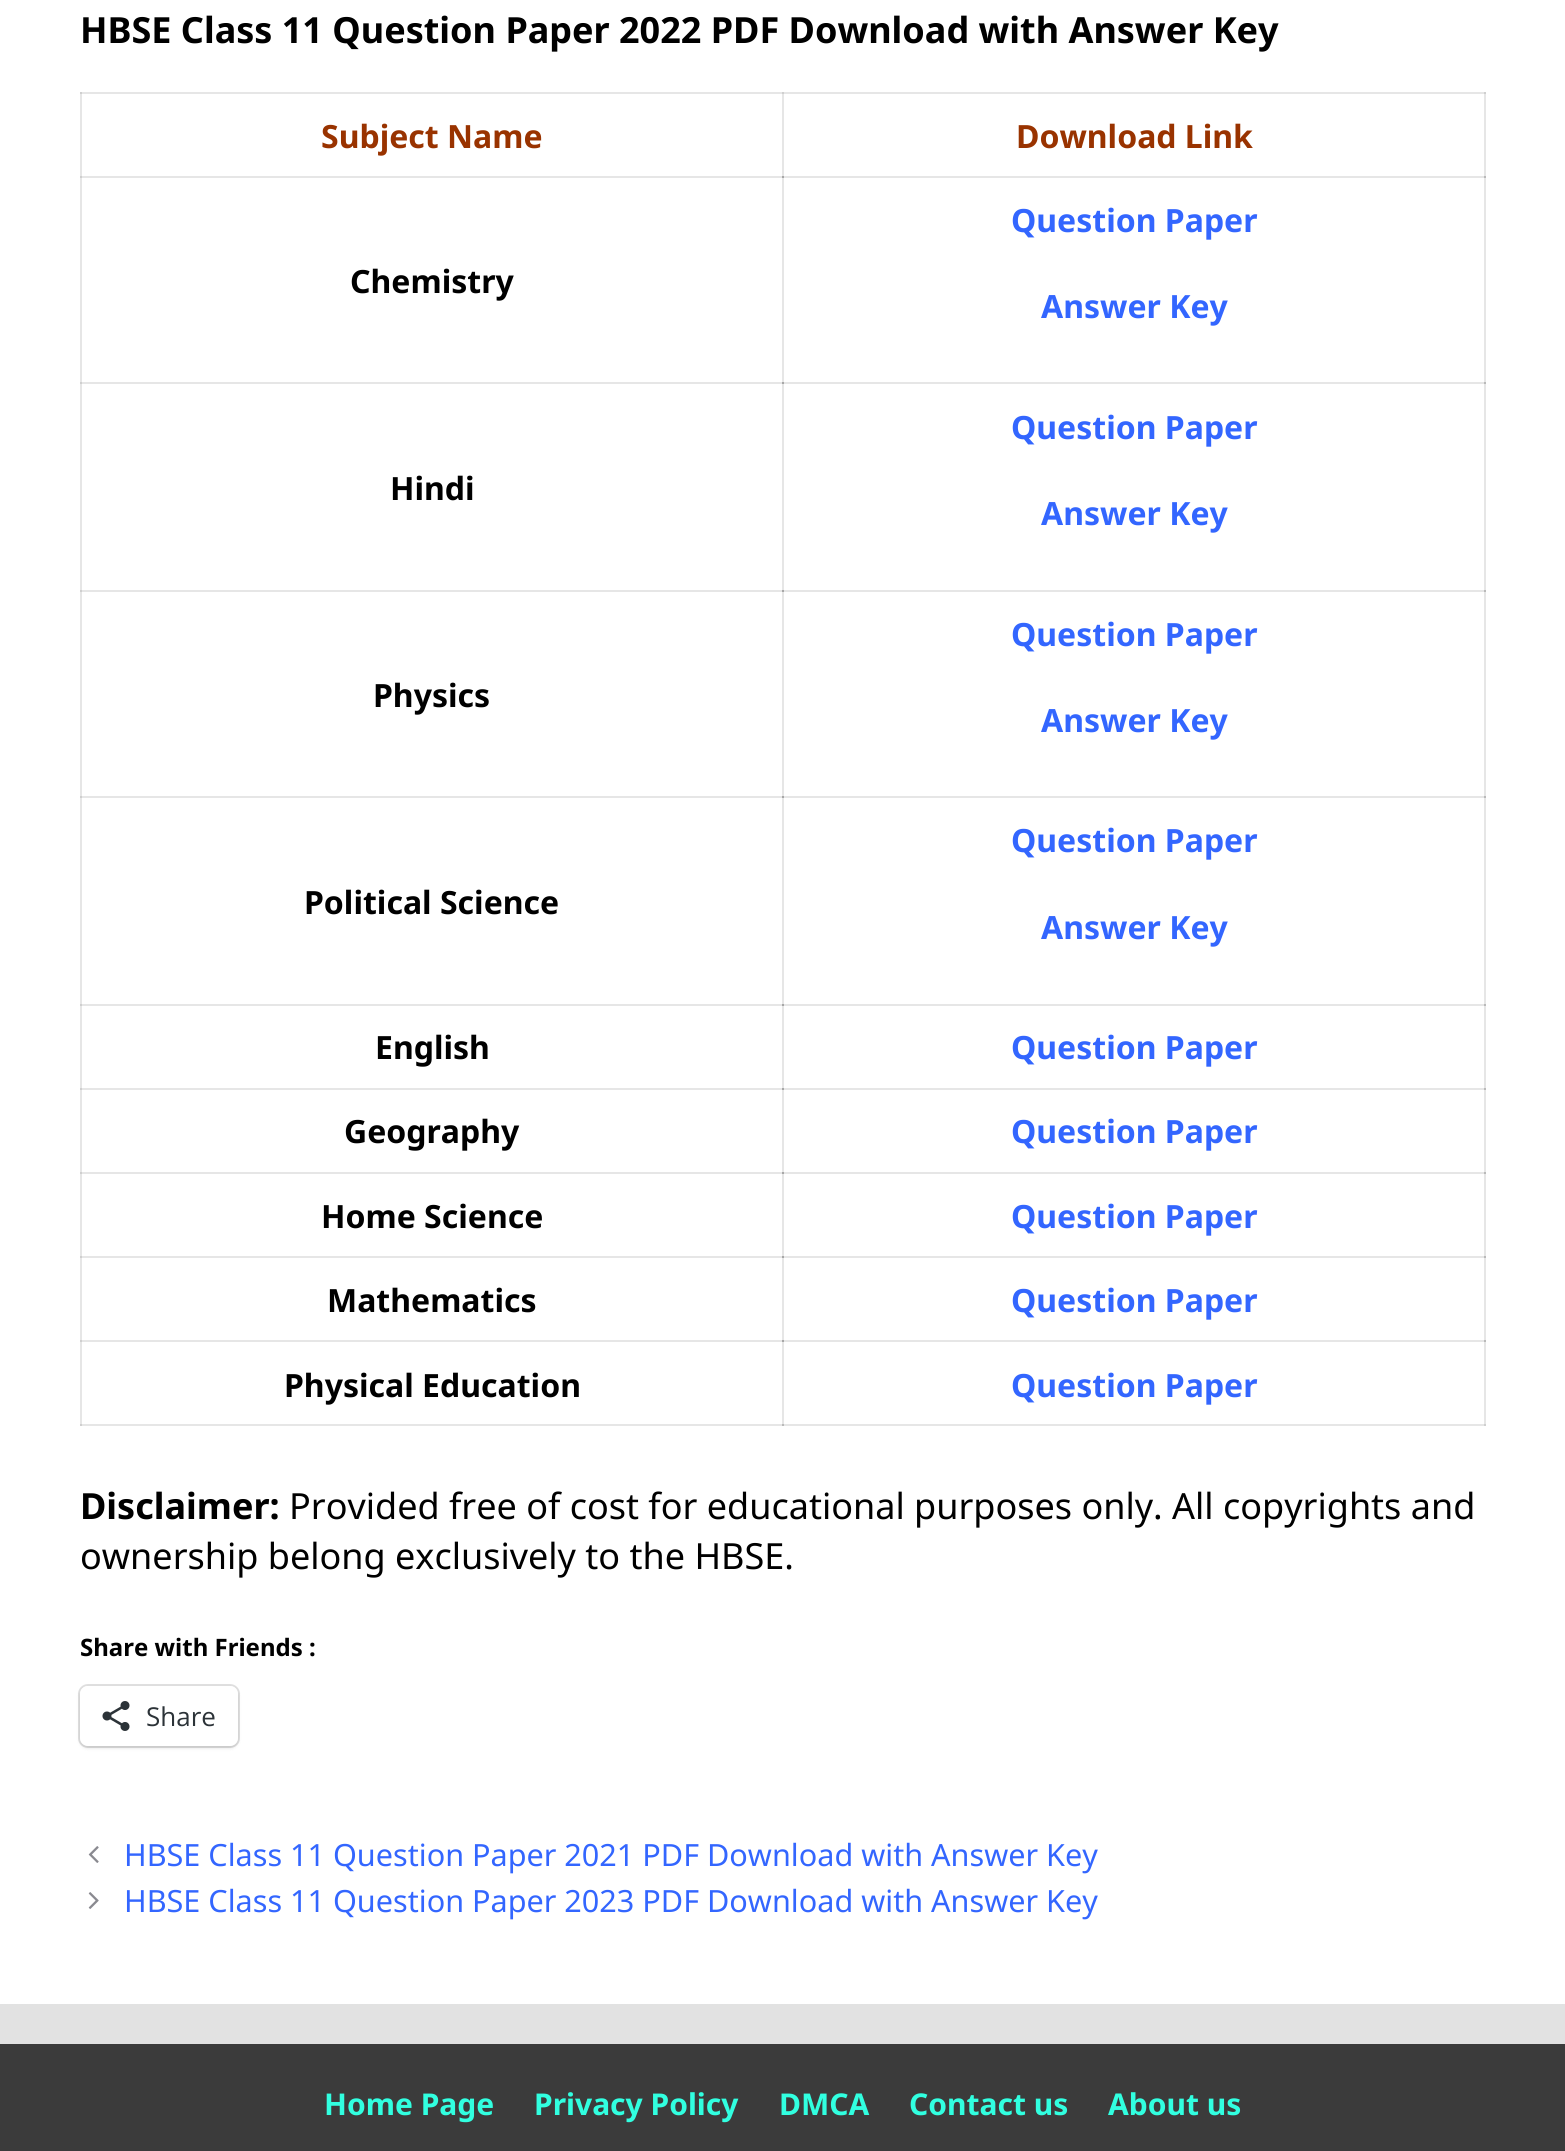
#include <cairo.h>
#include <math.h>
#include <stddef.h>

static cairo_t *c;
static void C(unsigned color){cairo_set_source_rgb(c, (color >> 16) / 255.0, (color >> 8 & 255) / 255.0, (color & 255) / 255.0);}
static void F(const char *family, double size, int italic, int bold){cairo_select_font_face(c, family, italic ? CAIRO_FONT_SLANT_ITALIC : CAIRO_FONT_SLANT_NORMAL,bold ? CAIRO_FONT_WEIGHT_BOLD : CAIRO_FONT_WEIGHT_NORMAL);cairo_set_font_size(c, size);}
static void T(double x, double y, const char *s){cairo_move_to(c, x, y);cairo_show_text(c, s);}
static void R(double x, double y, double w, double h){cairo_rectangle(c, x, y, w, h);cairo_fill(c);}
static void Q(double x, double y, double w, double h, double r){cairo_new_sub_path(c);cairo_arc(c, x + w - r, y + h - r, r, 0, M_PI / 2);cairo_arc(c, x + r, y + h - r, r, M_PI / 2, M_PI);cairo_arc(c, x + r, y + r, r, M_PI, 1.5 * M_PI);cairo_arc(c, x + w - r, y + r, r, 1.5 * M_PI, 2 * M_PI);cairo_close_path(c);}
static void S(double x, double y, double w, double h, double r, double blur, double alpha){cairo_push_group_with_content(c, CAIRO_CONTENT_ALPHA);cairo_set_operator(c, CAIRO_OPERATOR_SOURCE);for (int i = 15; i >= -15 && fmin(w, h) + blur * i / 3 > 0; i -= 2) {double e = blur * i / 6;cairo_set_source_rgba(c, 0, 0, 0, alpha * erfc((i - 1) / 8.5) / 2);Q(x - e, y - e, w + 2 * e, h + 2 * e, fmax(0, fmin(r + e + blur * .6, fmin(w, h) / 2 + e)));cairo_fill(c);}cairo_pattern_t *soft = cairo_pop_group(c);cairo_mask(c, soft);cairo_pattern_destroy(soft);}
static void I(const char *path, double x, double y, double w, double h){cairo_surface_t *image = cairo_image_surface_create_from_png(path);cairo_save(c);cairo_set_source_surface(c, image, x, y);cairo_rectangle(c, x, y, w, h);cairo_fill(c);cairo_restore(c);cairo_surface_destroy(image);}
int main(void) {
cairo_surface_t *surface = cairo_image_surface_create(CAIRO_FORMAT_RGB24, 1565, 2151);
c = cairo_create(surface);
cairo_font_options_t *options = cairo_font_options_create();
cairo_font_options_set_hint_metrics(options, CAIRO_HINT_METRICS_OFF);
cairo_font_options_set_hint_style(options, CAIRO_HINT_STYLE_NONE);
cairo_set_font_options(c, options);
cairo_set_miter_limit(c, 4);
C(0xe2e2e2);
cairo_paint(c);
C(0xffffff);
R(0,0,1565,2004);
C(0xe6e6e6);
R(80,176,704,2);
R(782,92,2,86);
R(782,176,704,2);
R(1484,92,2,86);
R(80,382,704,2);
R(782,176,2,208);
C(0xa7a7a7);
R(782,176,2,2);
C(0xe6e6e6);
R(782,382,704,2);
R(1484,176,2,208);
C(0xbababa);
R(1484,176,2,2);
C(0xe6e6e6);
R(80,590,704,2);
R(782,382,2,210);
C(0xa7a7a7);
R(782,382,2,2);
C(0xe6e6e6);
R(782,590,704,2);
R(1484,382,2,210);
C(0xbababa);
R(1484,382,2,2);
C(0xe6e6e6);
R(80,796,704,2);
R(782,590,2,208);
C(0xa7a7a7);
R(782,590,2,2);
C(0xe6e6e6);
R(782,796,704,2);
R(1484,590,2,208);
C(0xbababa);
R(1484,590,2,2);
C(0xe6e6e6);
R(80,1004,704,2);
R(782,796,2,210);
C(0xa7a7a7);
R(782,796,2,2);
C(0xe6e6e6);
R(782,1004,704,2);
R(1484,796,2,210);
C(0xbababa);
R(1484,796,2,2);
C(0xe6e6e6);
R(80,1088,704,2);
R(782,1004,2,86);
C(0xa7a7a7);
R(782,1004,2,2);
C(0xe6e6e6);
R(782,1088,704,2);
R(1484,1004,2,86);
C(0xbababa);
R(1484,1004,2,2);
C(0xe6e6e6);
R(80,1172,704,2);
R(782,1088,2,86);
C(0xa7a7a7);
R(782,1088,2,2);
C(0xe6e6e6);
R(782,1172,704,2);
R(1484,1088,2,86);
C(0xbababa);
R(1484,1088,2,2);
C(0xe6e6e6);
R(80,1256,704,2);
R(782,1172,2,86);
C(0xa7a7a7);
R(782,1172,2,2);
C(0xe6e6e6);
R(782,1256,704,2);
R(1484,1172,2,86);
C(0xbababa);
R(1484,1172,2,2);
C(0xe6e6e6);
R(80,1340,704,2);
R(782,1256,2,86);
C(0xa7a7a7);
R(782,1256,2,2);
C(0xe6e6e6);
R(782,1340,704,2);
R(1484,1256,2,86);
C(0xbababa);
R(1484,1256,2,2);
C(0xe6e6e6);
R(80,1424,704,2);
R(782,1340,2,86);
C(0xa7a7a7);
R(782,1340,2,2);
C(0xe6e6e6);
R(782,1424,704,2);
C(0xbababa);
R(782,1424,2,2);
C(0xe6e6e6);
R(80,92,2,1334);
C(0xcfcfcf);
R(80,176,2,2);
R(80,382,2,2);
R(80,590,2,2);
R(80,796,2,2);
R(80,1004,2,2);
R(80,1088,2,2);
R(80,1172,2,2);
R(80,1256,2,2);
R(80,1340,2,2);
R(80,1424,2,2);
F("Noto Sans",36,0,1);
C(0x000000);
T(80,43,"HBSE Class 11 Question Paper 2022 PDF Download with Answer Key");
C(0xe6e6e6);
R(80,92,1406,2);
C(0xcfcfcf);
R(782,92,2,2);
R(1484,92,2,2);
R(80,92,2,2);
F("Noto Sans",32,0,1);
C(0x993300);
T(321,148,"Subject Name");
T(1016,148,"Download Link");
C(0x000000);
T(350,293,"Chemistry");
C(0x3366ff);
T(1011,232,"Question Paper");
T(1041,318,"Answer Key");
C(0x000000);
T(390,500,"Hindi");
C(0x3366ff);
T(1011,439,"Question Paper");
T(1041,525,"Answer Key");
C(0x000000);
T(373,707,"Physics");
C(0x3366ff);
T(1011,646,"Question Paper");
T(1041,732,"Answer Key");
C(0x000000);
T(304,914,"Political Science");
C(0x3366ff);
T(1011,852,"Question Paper");
T(1041,939,"Answer Key");
C(0x000000);
T(375,1059,"English");
C(0x3366ff);
T(1011,1059,"Question Paper");
C(0x000000);
T(344,1143,"Geography");
C(0x3366ff);
T(1011,1143,"Question Paper");
C(0x000000);
T(321,1228,"Home Science");
C(0x3366ff);
T(1011,1228,"Question Paper");
C(0x000000);
T(327,1312,"Mathematics");
C(0x3366ff);
T(1011,1312,"Question Paper");
C(0x000000);
T(284,1397,"Physical Education");
C(0xe6e6e6);
R(1484,1340,2,86);
C(0xbababa);
R(1484,1340,2,2);
C(0xcfcfcf);
R(1484,1424,2,2);
C(0x3366ff);
T(1011,1397,"Question Paper");
F("Noto Sans",36,0,1);
C(0x000000);
T(80,1519,"Disclaimer:");
F("Noto Sans",36,0,0);
T(289,1519,"Provided free of cost for educational purposes only. All copyrights and");
T(80,1569,"ownership belong exclusively to the HBSE.");
F("Noto Sans",24,0,1);
T(80,1656,"Share with Friends :");
Q(79,1685,160,62,9);
C(0xe0e0e0);
cairo_stroke(c);
C(0x000000);
S(80,1688,158,60,8,2,.12);
C(0xffffff);
Q(80,1686,158,60,8);
cairo_fill(c);
I("1.png",102,1701,28,30);
F("Open Sans",26,0,0);
C(0x2c3338);
T(146,1726,"Share");
I("2.png",88,1846,11,17);
F("Noto Sans",30.6,0,0);
C(0x3366ff);
T(124,1866,"HBSE Class 11 Question Paper 2021 PDF Download with Answer Key");
I("3.png",88,1892,11,17);
T(124,1912,"HBSE Class 11 Question Paper 2023 PDF Download with Answer Key");
C(0x3b3b3b);
R(0,2044,1565,107);
F("Noto Sans",30,0,1);
C(0x31ffe0);
T(324,2115,"Home Page");
T(534,2115,"Privacy Policy");
T(779,2115,"DMCA");
T(909,2115,"Contact us");
T(1108,2115,"About us");
cairo_surface_write_to_png(surface, "o.png");
cairo_font_options_destroy(options);
cairo_destroy(c);
cairo_surface_destroy(surface);
return 0;
}
